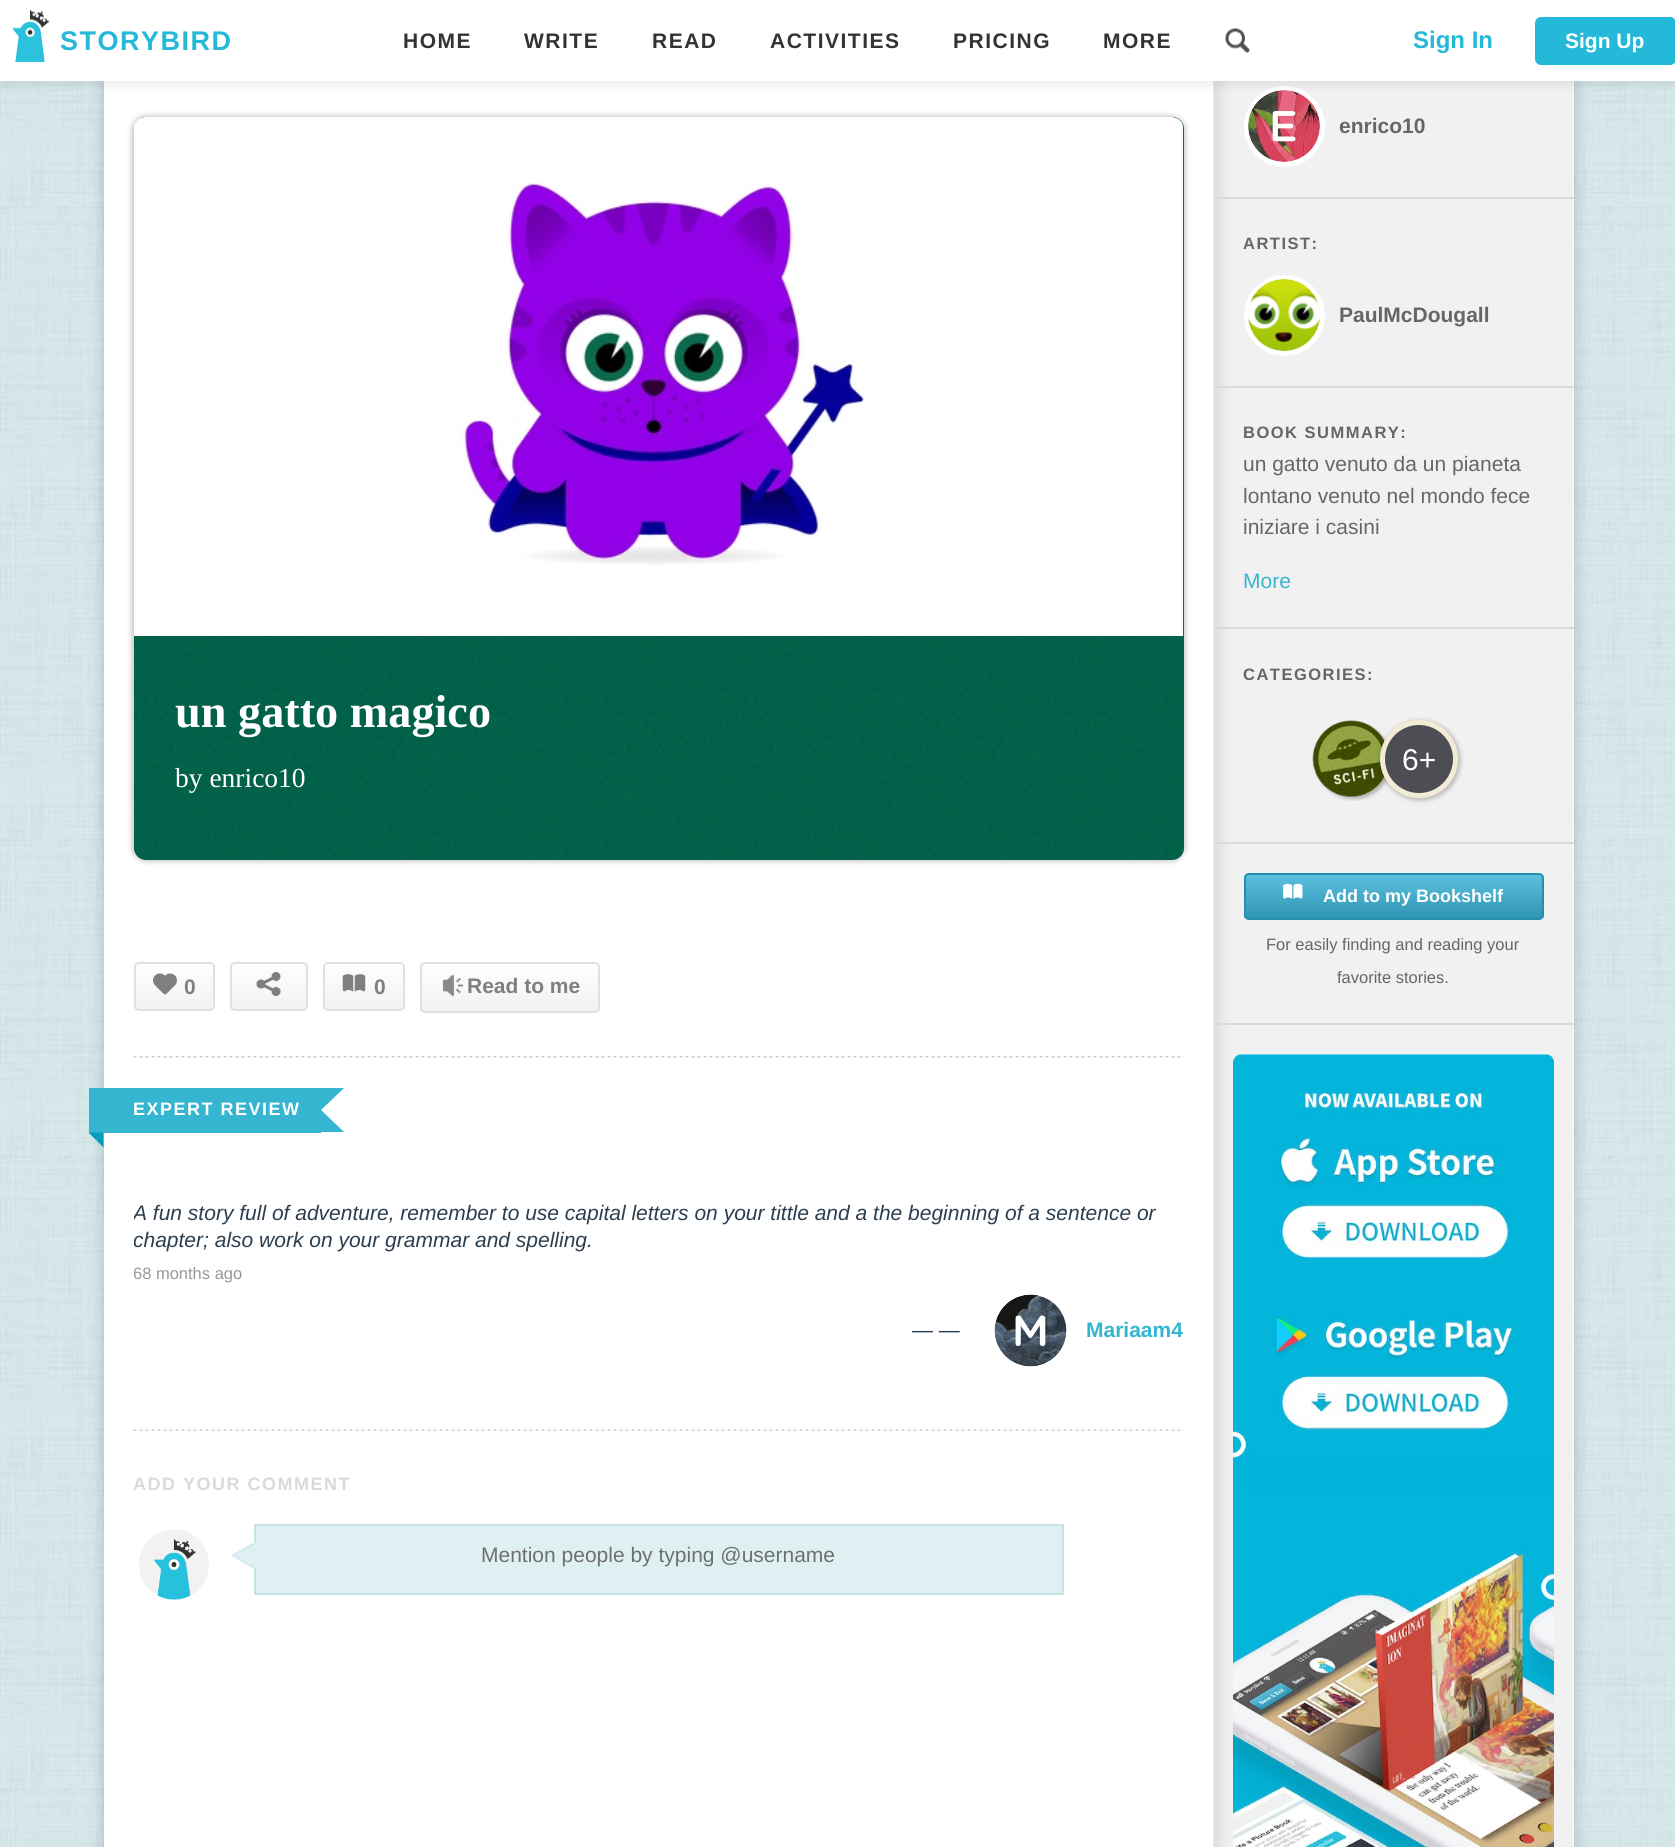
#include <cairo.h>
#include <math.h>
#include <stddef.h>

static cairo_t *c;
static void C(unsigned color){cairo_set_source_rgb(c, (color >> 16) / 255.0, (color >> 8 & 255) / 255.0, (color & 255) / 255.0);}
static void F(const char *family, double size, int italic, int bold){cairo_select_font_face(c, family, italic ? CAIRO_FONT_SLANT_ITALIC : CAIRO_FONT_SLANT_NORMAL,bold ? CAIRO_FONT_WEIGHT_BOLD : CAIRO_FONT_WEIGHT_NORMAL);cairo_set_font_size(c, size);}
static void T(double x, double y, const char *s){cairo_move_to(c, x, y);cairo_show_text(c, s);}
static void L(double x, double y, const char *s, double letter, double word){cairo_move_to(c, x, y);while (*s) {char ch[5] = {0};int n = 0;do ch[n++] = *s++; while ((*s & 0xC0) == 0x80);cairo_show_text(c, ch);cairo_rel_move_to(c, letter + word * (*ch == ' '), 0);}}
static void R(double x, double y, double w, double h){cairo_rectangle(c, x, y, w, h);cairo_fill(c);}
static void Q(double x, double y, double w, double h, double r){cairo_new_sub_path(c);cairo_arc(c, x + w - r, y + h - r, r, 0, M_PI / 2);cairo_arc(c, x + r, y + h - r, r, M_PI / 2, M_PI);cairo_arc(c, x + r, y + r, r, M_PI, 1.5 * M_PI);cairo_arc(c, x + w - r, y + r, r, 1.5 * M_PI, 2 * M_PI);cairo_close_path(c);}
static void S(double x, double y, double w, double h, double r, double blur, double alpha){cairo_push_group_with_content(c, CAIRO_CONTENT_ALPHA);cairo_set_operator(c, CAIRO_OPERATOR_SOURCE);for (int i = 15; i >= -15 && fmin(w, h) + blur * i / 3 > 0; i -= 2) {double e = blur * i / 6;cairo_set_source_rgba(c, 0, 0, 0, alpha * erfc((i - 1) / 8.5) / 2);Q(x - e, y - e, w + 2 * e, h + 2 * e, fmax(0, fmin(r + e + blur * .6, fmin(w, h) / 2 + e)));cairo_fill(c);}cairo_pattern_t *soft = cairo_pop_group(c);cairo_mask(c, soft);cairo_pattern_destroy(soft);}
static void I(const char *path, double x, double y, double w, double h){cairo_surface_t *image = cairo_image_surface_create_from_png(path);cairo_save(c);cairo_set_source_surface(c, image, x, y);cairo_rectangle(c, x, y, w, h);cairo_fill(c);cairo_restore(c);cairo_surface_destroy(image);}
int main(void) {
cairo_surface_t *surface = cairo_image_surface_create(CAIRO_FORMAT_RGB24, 1675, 1847);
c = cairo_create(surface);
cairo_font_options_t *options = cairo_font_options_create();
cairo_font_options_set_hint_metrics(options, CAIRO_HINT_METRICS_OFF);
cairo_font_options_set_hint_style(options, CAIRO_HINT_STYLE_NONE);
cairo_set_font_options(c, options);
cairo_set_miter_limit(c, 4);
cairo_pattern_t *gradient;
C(0xffffff);
cairo_paint(c);
I("1.png",0,81,1675,1766);
C(0x000000);
S(104,9,1470,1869,8,7.5,.2);
C(0xffffff);
R(104,81,1470,1766);
I("4.png",1213,81,361,1766);
cairo_arc(c,1284.5,126.5,38,0,2 * M_PI);
cairo_set_line_width(c,5);
cairo_stroke(c);
I("5.png",1248,90,72,72);
C(0x000000);
S(0,6,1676,81,0,3,.06);
C(0xffffff);
R(0,0,1675,81);
I("2.png",12,9,38,53);
F("Liberation Sans",27,0,1);
C(0x24b9d8);
L(60,50,"STORYBIRD",1.5,0);
F("Liberation Sans",21,0,1);
C(0x333333);
L(403,48,"HOME",1.5,0);
L(524,48,"WRITE",1.5,0);
L(652,48,"READ",1.5,0);
L(770,48,"ACTIVITIES",1.5,0);
L(953,48,"PRICING",1.5,0);
L(1103,48,"MORE",1.5,0);
I("3.png",1225,28,25,25);
F("Liberation Sans",24,0,1);
C(0x24b9d8);
T(1413,48,"Sign In");
Q(1535,17,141,48,6);
cairo_fill(c);
F("Liberation Sans",21,0,1);
C(0xffffff);
T(1565,48,"Sign Up");
C(0xd9d9d9);
R(1214,197,360,2);
C(0x666666);
T(1339,133,"enrico10");
C(0xd9d9d9);
R(1214,386,360,2);
F("Liberation Sans",16.5,0,1);
C(0x666666);
L(1243,249,"ARTIST:",1.5,0);
cairo_new_path(c);
cairo_arc(c,1284.5,315.5,38,0,2 * M_PI);
C(0xffffff);
cairo_stroke(c);
I("6.png",1248,279,72,72);
F("Liberation Sans",21,0,1);
C(0x666666);
T(1339,322,"PaulMcDougall");
C(0xd9d9d9);
R(1214,627,360,2);
F("Liberation Sans",16.5,0,1);
C(0x666666);
L(1243,438,"BOOK SUMMARY:",1.5,0);
F("Liberation Sans",21,0,0);
T(1243,471,"un gatto venuto da un pianeta");
T(1243,503,"lontano venuto nel mondo fece");
T(1243,534,"iniziare i casini");
C(0x34b5d0);
T(1243,588,"More");
C(0xd9d9d9);
R(1214,842,360,2);
F("Liberation Sans",16.5,0,1);
C(0x666666);
L(1243,680,"CATEGORIES:",1.5,0);
I("7.png",1312,720,76,81);
C(0x000000);
S(1380,720,81,81,40.5,2,.2);
C(0x4d4e53);
cairo_arc(c,1419,759,36.5,0,2 * M_PI);
cairo_fill_preserve(c);
C(0xf2ebd6);
cairo_stroke(c);
F("Liberation Sans",30,0,0);
C(0xffffff);
T(1402,770,"6+");
C(0xd9d9d9);
R(1214,1023,360,2);
cairo_save(c);
Q(1244,873,300,47,5);
cairo_clip(c);
gradient = cairo_pattern_create_linear(1394,875,1394,918);
cairo_pattern_add_color_stop_rgba(gradient,0,0.357,0.753,0.871,1);
cairo_pattern_add_color_stop_rgba(gradient,1,0.184,0.588,0.706,1);
cairo_set_source(c,gradient);
cairo_pattern_destroy(gradient);
R(1244,875,300,43);
cairo_restore(c);
Q(1245,874,298,45,4);
C(0x2390b0);
cairo_set_line_width(c,2);
cairo_stroke(c);
I("8.png",1283,883,20,16);
F("Liberation Sans",18,0,1);
C(0xffffff);
T(1323,902,"Add to my Bookshelf");
F("Liberation Sans",16.5,0,0);
C(0x666666);
T(1266,950,"For easily finding and reading your");
T(1337,983,"favorite stories.");
I("9.png",1233,1054,321,793);
C(0x000000);
S(132,116,1053,745,14,3,.25);
cairo_save(c);
Q(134,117,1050,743,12);
cairo_clip(c);
C(0xa5a5a5);
S(134,117,1050,743,11,1.5,1);
cairo_restore(c);
cairo_save(c);
Q(134,117,1050,743,11);
cairo_clip(c);
C(0x006048);
Q(134,117,1050,743,12);
cairo_fill(c);
cairo_restore(c);
I("10.png",134,118,1049,741);
cairo_set_source_rgba(c,0,0,0,0.2);
cairo_new_path(c);
cairo_move_to(c,146,117);
cairo_line_to(c,1172,117);
cairo_curve_to(c,1178.5,117,1184,122.5,1184,129);
cairo_line_to(c,1184,636);
cairo_line_to(c,134,636);
cairo_line_to(c,134,129);
cairo_curve_to(c,134,122.5,139.5,117,146,117);
cairo_close_path(c);
cairo_fill(c);
I("11.png",134,117,1050,519);
F("Liberation Serif",46.25,0,1);
C(0xffffff);
T(175,727,"un gatto magico");
F("Liberation Serif",27.5,0,0);
T(175,787,"by enrico10");
I("12.png",133,1056,1051,2);
cairo_save(c);
Q(134,962,81,49,5);
cairo_clip(c);
gradient = cairo_pattern_create_linear(174,963,174,1010);
cairo_pattern_add_color_stop_rgba(gradient,0,1,1,1,1);
cairo_pattern_add_color_stop_rgba(gradient,1,0.945,0.945,0.957,1);
cairo_set_source(c,gradient);
cairo_pattern_destroy(gradient);
R(134,963,81,47);
cairo_restore(c);
Q(135,963,79,47,4);
C(0xe0e0e0);
cairo_stroke(c);
I("13.png",153,973,24,22);
F("Liberation Sans",21,0,1);
C(0x7f7f7f);
T(184,994,"0");
cairo_save(c);
Q(230,962,78,49,5);
cairo_clip(c);
gradient = cairo_pattern_create_linear(269,963,269,1010);
cairo_pattern_add_color_stop_rgba(gradient,0,1,1,1,1);
cairo_pattern_add_color_stop_rgba(gradient,1,0.945,0.945,0.957,1);
cairo_set_source(c,gradient);
cairo_pattern_destroy(gradient);
R(230,963,78,47);
cairo_restore(c);
Q(231,963,76,47,4);
C(0xe0e0e0);
cairo_stroke(c);
I("14.png",256,972,25,24);
cairo_save(c);
Q(323,962,82,49,5);
cairo_clip(c);
gradient = cairo_pattern_create_linear(364,963,364,1010);
cairo_pattern_add_color_stop_rgba(gradient,0,1,1,1,1);
cairo_pattern_add_color_stop_rgba(gradient,1,0.945,0.945,0.957,1);
cairo_set_source(c,gradient);
cairo_pattern_destroy(gradient);
R(323,963,82,47);
cairo_restore(c);
Q(324,963,80,47,4);
cairo_stroke(c);
I("15.png",342,974,24,18);
C(0x7f7f7f);
T(374,994,"0");
cairo_save(c);
Q(420,962,180,51,5);
cairo_clip(c);
gradient = cairo_pattern_create_linear(510,963,510,1011);
cairo_pattern_add_color_stop_rgba(gradient,0,1,1,1,1);
cairo_pattern_add_color_stop_rgba(gradient,1,0.945,0.945,0.957,1);
cairo_set_source(c,gradient);
cairo_pattern_destroy(gradient);
R(420,963,180,48);
cairo_restore(c);
Q(421,963,178,49,4);
C(0xe0e0e0);
cairo_stroke(c);
I("16.png",443,974,21,23);
C(0x7f7f7f);
T(467,993,"Read to me");
C(0x35b5d0);
R(89,1088,210,45);
F("Liberation Sans",18,0,1);
C(0xffffff);
L(133,1115,"EXPERT REVIEW",1.5,0);
C(0x35b5d0);
cairo_new_path(c);
cairo_move_to(c,298,1088);
cairo_line_to(c,344,1088);
cairo_line_to(c,321,1110);
cairo_close_path(c);
cairo_move_to(c,344,1132);
cairo_line_to(c,298,1132);
cairo_line_to(c,321,1110);
cairo_close_path(c);
cairo_fill(c);
R(299,1089,22,44);
C(0x009abc);
cairo_new_path(c);
cairo_move_to(c,88.5,1132.5);
cairo_line_to(c,103.5,1132.5);
cairo_line_to(c,96,1140);
cairo_close_path(c);
cairo_fill(c);
cairo_new_path(c);
cairo_move_to(c,103.5,1132.5);
cairo_line_to(c,103.5,1147.5);
cairo_line_to(c,96,1140);
cairo_close_path(c);
cairo_fill(c);
I("17.png",133,1429,1051,2);
cairo_save(c);
cairo_rectangle(c,134,1178,1050,216);
cairo_clip(c);
F("Liberation Sans",21,1,0);
C(0x2c3e50);
T(133,1220,"A fun story full of adventure, remember to use capital letters on your tittle and a the beginning of a sentence or");
T(133,1247,"chapter; also work on your grammar and spelling.");
cairo_restore(c);
cairo_save(c);
cairo_rectangle(c,134,1266,1050,24);
cairo_clip(c);
F("Liberation Sans",16.5,0,0);
C(0x979797);
T(133,1279,"68 months ago");
cairo_restore(c);
F("Liberation Sans",21,0,0);
C(0x2c3e50);
T(912,1337,"— —");
I("18.png",994,1294,73,73);
F("Liberation Sans",21,0,1);
C(0x34b5d0);
T(1086,1337,"Mariaam4");
F("Liberation Sans",18,0,1);
C(0xdadada);
L(133,1490,"ADD YOUR COMMENT",1.5,0);
I("19.png",139,1529,70,71);
C(0xdff0f3);
cairo_rectangle(c,255,1525,808,69);
cairo_fill_preserve(c);
C(0xc6e4e8);
cairo_stroke(c);
I("20.png",231,1543,25,25);
F("Liberation Sans",21,0,0);
C(0x6e6f6f);
T(481,1562,"Mention people by typing @username");
cairo_surface_write_to_png(surface, "o.png");
cairo_font_options_destroy(options);
cairo_destroy(c);
cairo_surface_destroy(surface);
return 0;
}
